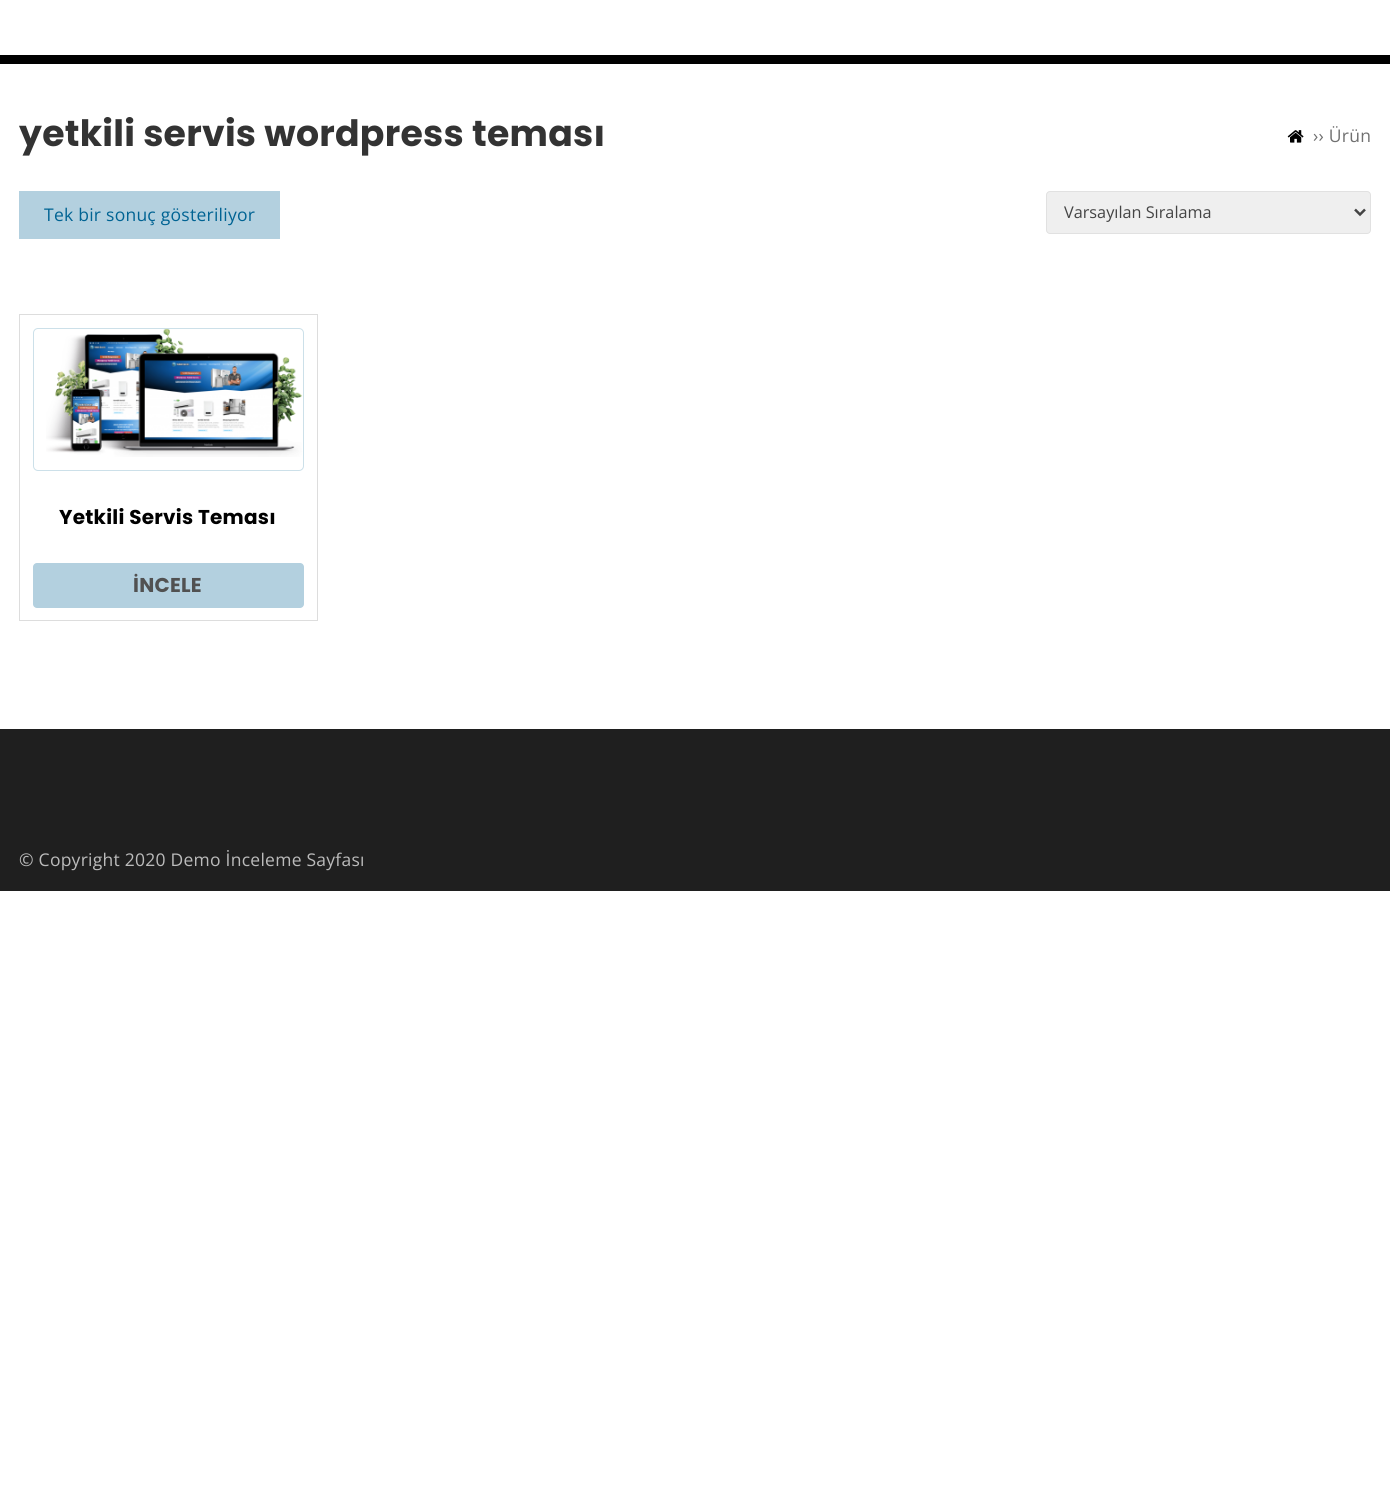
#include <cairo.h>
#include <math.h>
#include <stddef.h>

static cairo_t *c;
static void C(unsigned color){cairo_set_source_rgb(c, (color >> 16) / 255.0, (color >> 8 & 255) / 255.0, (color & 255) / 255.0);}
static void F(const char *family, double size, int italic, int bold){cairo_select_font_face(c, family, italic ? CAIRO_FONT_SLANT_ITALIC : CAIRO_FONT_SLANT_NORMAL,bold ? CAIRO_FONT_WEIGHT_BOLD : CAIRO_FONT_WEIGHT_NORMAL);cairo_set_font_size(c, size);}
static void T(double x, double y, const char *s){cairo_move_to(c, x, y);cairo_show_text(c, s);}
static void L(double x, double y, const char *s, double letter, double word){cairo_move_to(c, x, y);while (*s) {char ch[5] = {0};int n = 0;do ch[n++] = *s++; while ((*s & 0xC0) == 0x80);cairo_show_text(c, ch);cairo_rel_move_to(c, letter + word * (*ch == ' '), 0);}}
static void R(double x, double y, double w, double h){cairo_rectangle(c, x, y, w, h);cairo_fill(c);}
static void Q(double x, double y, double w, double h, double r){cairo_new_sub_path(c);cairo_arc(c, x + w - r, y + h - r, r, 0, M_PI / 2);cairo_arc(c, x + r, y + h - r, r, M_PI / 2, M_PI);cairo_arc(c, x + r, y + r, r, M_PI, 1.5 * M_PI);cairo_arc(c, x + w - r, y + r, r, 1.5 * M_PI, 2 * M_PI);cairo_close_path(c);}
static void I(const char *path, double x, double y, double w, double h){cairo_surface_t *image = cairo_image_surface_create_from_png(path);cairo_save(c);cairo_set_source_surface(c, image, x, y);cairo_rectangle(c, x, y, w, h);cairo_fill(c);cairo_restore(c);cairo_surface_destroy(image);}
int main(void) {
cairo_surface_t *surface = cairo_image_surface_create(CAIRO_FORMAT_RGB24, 1390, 1511);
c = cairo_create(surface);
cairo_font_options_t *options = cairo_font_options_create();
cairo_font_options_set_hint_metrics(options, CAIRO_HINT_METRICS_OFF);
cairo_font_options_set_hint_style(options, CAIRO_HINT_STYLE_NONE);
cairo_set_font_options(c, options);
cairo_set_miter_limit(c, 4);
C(0xffffff);
cairo_paint(c);
C(0x000000);
R(0,55,1390,9);
F("Poppins",36.25,0,1);
C(0x333333);
L(19,146,"yetkili servis wordpress teması",.25,0);
I("1.png",1287,130,17,13);
F("Open Sans",17.5,0,0);
C(0x707070);
L(1313,142,"›› Ürün",.25,0);
C(0xb3d0df);
R(19,191,261,48);
C(0x006393);
L(44,221,"Tek bir sonuç gösteriliyor",.25,0);
C(0xefefef);
Q(1046.5,191.5,324,42,3.5);
cairo_fill_preserve(c);
C(0xe1e1e1);
cairo_set_line_width(c,1);
cairo_stroke(c);
cairo_new_path(c);
cairo_move_to(c,1355,209.5);
cairo_line_to(c,1360,214.5);
cairo_line_to(c,1365,209.5);
C(0x444444);
cairo_set_line_width(c,2.5);
cairo_stroke(c);
F("Open Sans",16.25,0,0);
T(1064,218,"Varsayılan Sıralama");
cairo_rectangle(c,19.5,314.5,298,306);
C(0xdddddd);
cairo_set_line_width(c,1);
cairo_stroke(c);
Q(33.5,328.5,270,142,4.5);
C(0xcce0e9);
cairo_stroke(c);
I("2.png",46,328,257,129);
F("Poppins",20,0,1);
C(0x000000);
L(59,524,"Yetkili Servis Teması",.25,0);
C(0xb3d0df);
Q(33,563,271,45,4);
cairo_fill(c);
C(0x515151);
L(133,592,"İNCELE",.25,0);
C(0x1f1f1f);
R(0,729,1390,162);
F("Open Sans",17.5,0,0);
C(0xbbbbbb);
L(19,866,"© Copyright 2020 Demo İnceleme Sayfası",.25,0);
cairo_surface_write_to_png(surface, "o.png");
cairo_font_options_destroy(options);
cairo_destroy(c);
cairo_surface_destroy(surface);
return 0;
}
